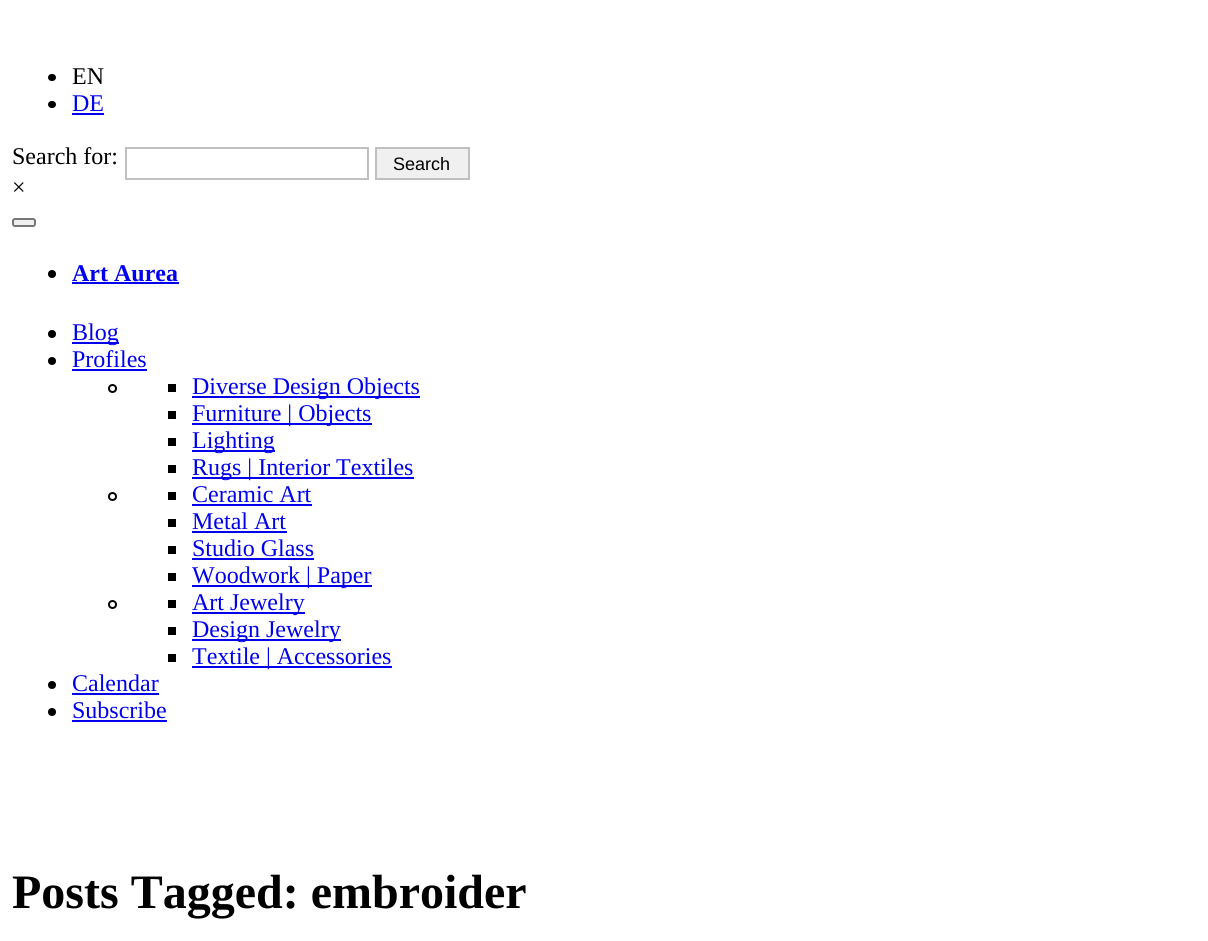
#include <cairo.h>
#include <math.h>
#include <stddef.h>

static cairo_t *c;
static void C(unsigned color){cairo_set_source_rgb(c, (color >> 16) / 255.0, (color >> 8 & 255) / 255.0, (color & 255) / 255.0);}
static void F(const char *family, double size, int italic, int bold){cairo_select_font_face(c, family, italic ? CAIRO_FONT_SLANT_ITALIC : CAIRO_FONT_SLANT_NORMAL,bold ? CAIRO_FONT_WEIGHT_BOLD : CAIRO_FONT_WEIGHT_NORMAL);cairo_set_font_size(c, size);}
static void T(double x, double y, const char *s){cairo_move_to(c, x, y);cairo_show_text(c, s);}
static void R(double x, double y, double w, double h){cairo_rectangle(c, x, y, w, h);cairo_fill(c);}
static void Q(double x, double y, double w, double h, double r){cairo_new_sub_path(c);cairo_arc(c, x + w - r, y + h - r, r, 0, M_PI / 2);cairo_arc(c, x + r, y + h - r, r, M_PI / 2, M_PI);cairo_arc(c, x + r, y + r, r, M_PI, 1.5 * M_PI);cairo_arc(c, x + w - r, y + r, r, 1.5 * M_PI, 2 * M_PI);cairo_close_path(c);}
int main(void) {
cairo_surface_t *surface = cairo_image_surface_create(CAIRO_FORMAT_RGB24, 1208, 941);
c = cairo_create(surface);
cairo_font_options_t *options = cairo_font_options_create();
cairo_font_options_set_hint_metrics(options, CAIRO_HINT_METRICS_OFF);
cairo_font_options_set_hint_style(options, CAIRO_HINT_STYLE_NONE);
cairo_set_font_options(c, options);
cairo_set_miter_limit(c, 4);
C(0xffffff);
cairo_paint(c);
C(0x000000);
Q(48,74,8,7,3.5);
cairo_fill(c);
F("Liberation Serif",24,0,0);
T(72,84,"EN");
Q(48,101,8,7,3.5);
cairo_fill(c);
C(0x0000ee);
T(72,111,"DE");
R(72,113,32,2);
C(0x000000);
T(12,164,"Search for:");
cairo_rectangle(c,126,148,242,31);
C(0xc0c0c0);
cairo_stroke(c);
C(0xf0f0f0);
cairo_rectangle(c,376,148,93,31);
cairo_fill_preserve(c);
C(0xc0c0c0);
cairo_stroke(c);
F("Liberation Sans",18,0,0);
C(0x000000);
T(393,170,"Search");
F("Liberation Serif",24,0,0);
T(12,195,"×");
C(0xefefef);
Q(13,219,22,7,2);
cairo_fill_preserve(c);
C(0x767676);
cairo_stroke(c);
C(0x000000);
cairo_arc(c,52,274,4,0,2 * M_PI);
cairo_fill(c);
F("Liberation Serif",24,0,1);
C(0x0000ee);
T(72,281,"Art Aurea");
R(72,282,107,2);
C(0x000000);
cairo_new_path(c);
cairo_arc(c,52,334,4,0,2 * M_PI);
cairo_fill(c);
C(0x0000ee);
R(72,342,47,2);
F("Liberation Serif",24,0,0);
T(72,340,"Blog");
C(0x000000);
cairo_new_path(c);
cairo_arc(c,52,361,4,0,2 * M_PI);
cairo_fill(c);
C(0x0000ee);
T(72,367,"Profiles");
R(72,369,75,2);
cairo_new_path(c);
cairo_arc(c,112.5,388.5,3.5,0,2 * M_PI);
C(0x000000);
cairo_stroke(c);
R(168,384,8,8);
C(0x0000ee);
R(192,396,228,2);
T(192,394,"Diverse Design Objects");
C(0x000000);
R(168,411,8,8);
C(0x0000ee);
R(192,423,180,2);
T(192,421,"Furniture | Objects");
C(0x000000);
R(168,438,8,8);
C(0x0000ee);
R(192,450,83,2);
T(192,448,"Lighting");
C(0x000000);
R(168,465,8,8);
C(0x0000ee);
R(192,477,222,2);
T(192,475,"Rugs | Interior Textiles");
cairo_new_path(c);
cairo_arc(c,112.5,496.5,3.5,0,2 * M_PI);
C(0x000000);
cairo_stroke(c);
R(168,492,8,8);
C(0x0000ee);
T(192,502,"Ceramic Art");
R(192,504,120,2);
C(0x000000);
R(168,519,8,8);
C(0x0000ee);
T(192,529,"Metal Art");
R(192,531,95,2);
C(0x000000);
R(168,546,8,8);
C(0x0000ee);
T(192,556,"Studio Glass");
R(192,558,122,2);
C(0x000000);
R(168,573,8,8);
C(0x0000ee);
R(192,585,180,2);
T(192,583,"Woodwork | Paper");
cairo_new_path(c);
cairo_arc(c,112.5,604.5,3.5,0,2 * M_PI);
C(0x000000);
cairo_stroke(c);
R(168,600,8,8);
C(0x0000ee);
R(192,612,113,2);
T(192,610,"Art Jewelry");
C(0x000000);
R(168,627,8,8);
C(0x0000ee);
R(192,639,149,2);
T(192,637,"Design Jewelry");
C(0x000000);
R(168,654,8,8);
C(0x0000ee);
R(192,666,200,2);
T(192,664,"Textile | Accessories");
C(0x000000);
cairo_new_path(c);
cairo_arc(c,52,685,4,0,2 * M_PI);
cairo_fill(c);
C(0x0000ee);
T(72,691,"Calendar");
R(72,693,87,2);
C(0x000000);
cairo_new_path(c);
cairo_arc(c,52,712,4,0,2 * M_PI);
cairo_fill(c);
C(0x0000ee);
T(72,718,"Subscribe");
R(72,720,95,2);
F("Liberation Serif",48,0,1);
C(0x000000);
T(12,908,"Posts Tagged: embroider");
cairo_surface_write_to_png(surface, "o.png");
cairo_font_options_destroy(options);
cairo_destroy(c);
cairo_surface_destroy(surface);
return 0;
}
